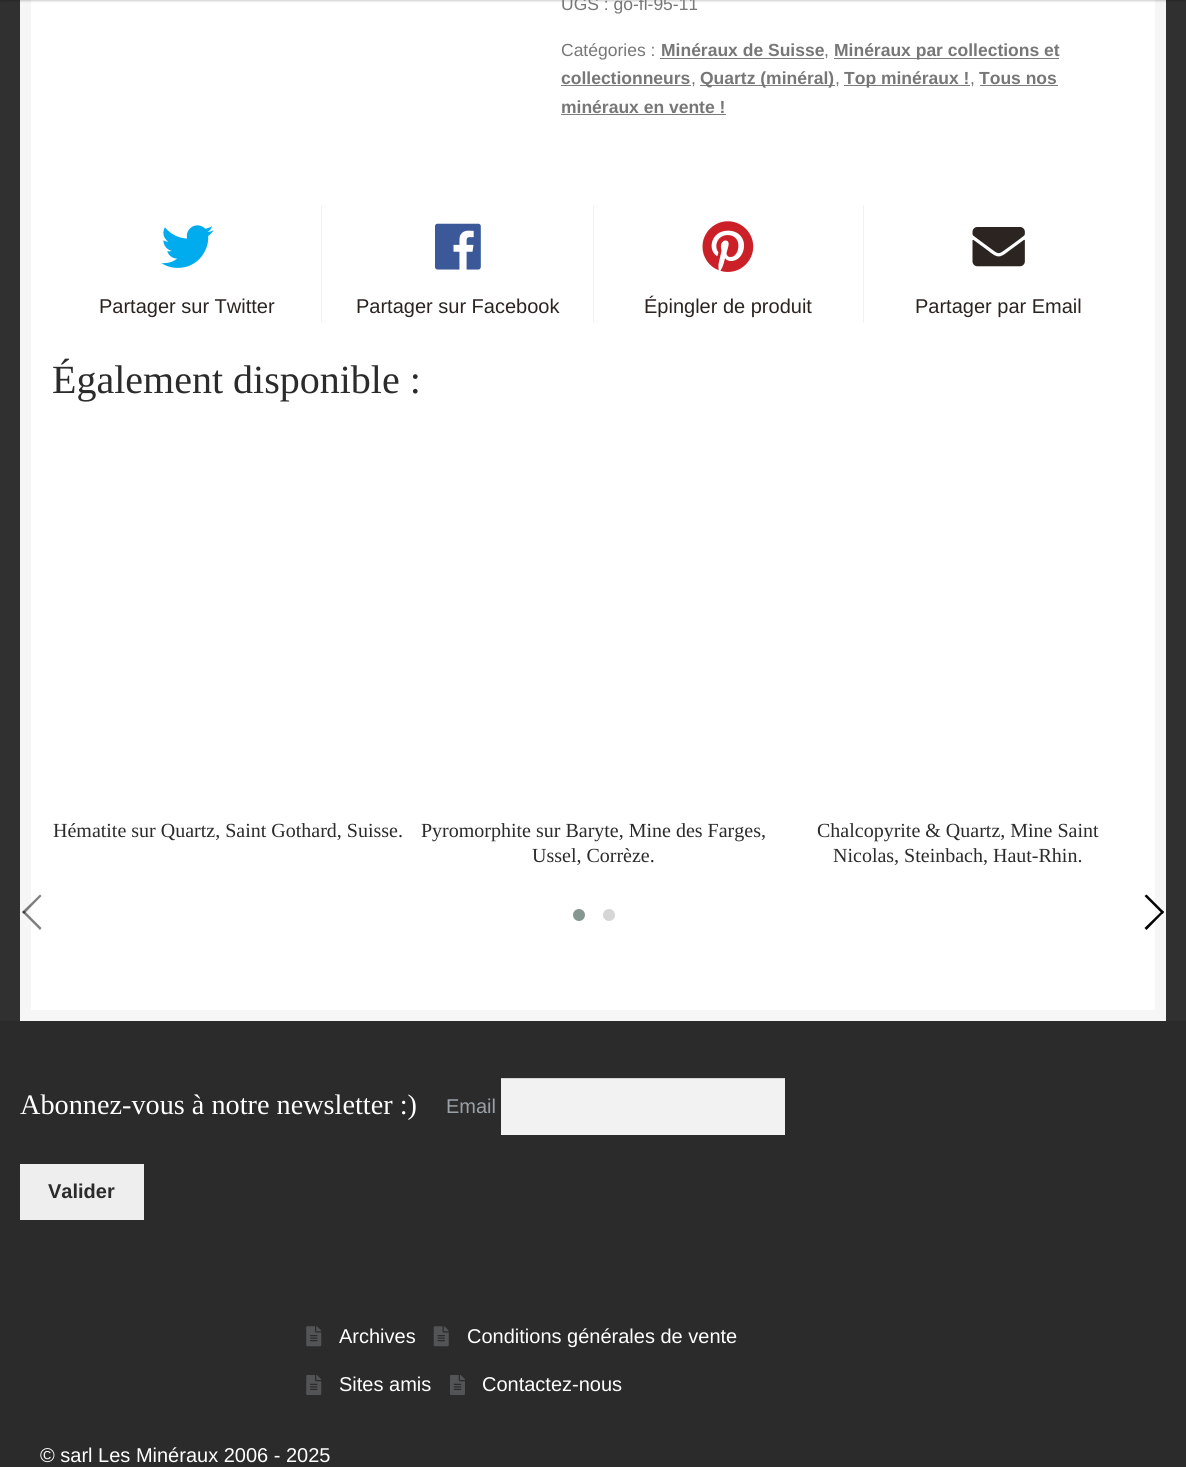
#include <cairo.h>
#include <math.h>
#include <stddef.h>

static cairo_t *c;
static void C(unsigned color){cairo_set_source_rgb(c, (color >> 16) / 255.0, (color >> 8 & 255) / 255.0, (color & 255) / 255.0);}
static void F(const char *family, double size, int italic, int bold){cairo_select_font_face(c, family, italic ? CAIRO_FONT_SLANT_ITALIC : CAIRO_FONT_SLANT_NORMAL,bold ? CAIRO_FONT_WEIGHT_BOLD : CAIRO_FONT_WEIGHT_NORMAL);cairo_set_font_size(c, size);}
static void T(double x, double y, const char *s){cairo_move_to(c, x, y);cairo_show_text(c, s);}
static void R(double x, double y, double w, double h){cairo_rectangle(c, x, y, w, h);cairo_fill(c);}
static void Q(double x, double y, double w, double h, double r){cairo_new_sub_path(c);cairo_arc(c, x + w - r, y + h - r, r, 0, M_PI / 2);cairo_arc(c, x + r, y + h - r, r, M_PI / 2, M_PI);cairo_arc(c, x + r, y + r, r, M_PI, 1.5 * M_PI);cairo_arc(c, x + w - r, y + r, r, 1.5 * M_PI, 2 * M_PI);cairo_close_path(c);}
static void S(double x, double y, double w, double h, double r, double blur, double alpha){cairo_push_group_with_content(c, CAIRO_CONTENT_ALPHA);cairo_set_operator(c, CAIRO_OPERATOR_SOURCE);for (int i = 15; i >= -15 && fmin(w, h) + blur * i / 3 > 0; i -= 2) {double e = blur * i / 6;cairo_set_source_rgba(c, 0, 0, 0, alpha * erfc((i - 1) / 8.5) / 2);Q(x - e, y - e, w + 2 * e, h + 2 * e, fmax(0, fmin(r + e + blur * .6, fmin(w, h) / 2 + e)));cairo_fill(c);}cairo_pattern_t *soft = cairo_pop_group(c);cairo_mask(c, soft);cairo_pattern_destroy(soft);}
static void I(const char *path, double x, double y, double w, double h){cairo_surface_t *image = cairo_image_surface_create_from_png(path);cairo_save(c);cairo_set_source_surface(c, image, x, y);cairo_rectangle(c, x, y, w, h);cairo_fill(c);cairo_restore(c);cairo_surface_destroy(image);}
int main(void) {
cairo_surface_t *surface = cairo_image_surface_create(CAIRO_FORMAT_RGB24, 1186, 1467);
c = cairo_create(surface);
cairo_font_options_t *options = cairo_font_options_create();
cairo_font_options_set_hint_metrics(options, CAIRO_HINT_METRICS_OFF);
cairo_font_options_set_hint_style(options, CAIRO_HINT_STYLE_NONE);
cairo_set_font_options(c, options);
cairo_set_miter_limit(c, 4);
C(0x303030);
cairo_paint(c);
C(0xffffff);
cairo_rectangle(c,25.5,-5.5,1135,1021);
cairo_fill_preserve(c);
C(0xf6f6f6);
cairo_set_line_width(c,11);
cairo_stroke(c);
C(0x000000);
S(0,-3,1186,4,0,1,.2);
F("Liberation Sans",17.5,0,0);
C(0x777777);
T(561,10,"UGS : go-fl-95-11");
T(561,56,"Catégories :");
F("Liberation Sans",17.5,0,1);
T(661,56,"Minéraux de Suisse");
C(0x7c7c7c);
R(660,58,164,1);
F("Liberation Sans",17.5,0,0);
C(0x777777);
T(824,56,",");
C(0x7c7c7c);
R(834,58,225,1);
F("Liberation Sans",17.5,0,1);
C(0x777777);
T(834,56,"Minéraux par collections et");
T(561,84,"collectionneurs");
C(0x7c7c7c);
R(561,85,130,1);
F("Liberation Sans",17.5,0,0);
C(0x777777);
T(691,84,",");
C(0x7c7c7c);
R(700,85,135,1);
F("Liberation Sans",17.5,0,1);
C(0x777777);
T(700,84,"Quartz (minéral)");
F("Liberation Sans",17.5,0,0);
T(835,84,",");
C(0x7c7c7c);
R(844,85,126,1);
F("Liberation Sans",17.5,0,1);
C(0x777777);
T(844,84,"Top minéraux !");
F("Liberation Sans",17.5,0,0);
T(970,84,",");
F("Liberation Sans",17.5,0,1);
T(979,84,"Tous nos");
C(0x7c7c7c);
R(980,85,78,1);
C(0x777777);
T(561,113,"minéraux en vente !");
C(0x7c7c7c);
R(561,114,165,1);
C(0xf2f2f2);
R(321,205,1,118);
I("1.png",161,225,53,43);
F("Liberation Sans",20,0,0);
C(0x2b2420);
T(99,313,"Partager sur Twitter");
C(0xf2f2f2);
R(593,205,1,118);
I("2.png",435,223,46,47);
C(0x2b2420);
T(356,313,"Partager sur Facebook");
C(0xf2f2f2);
R(863,205,1,118);
I("3.png",702,221,52,51);
C(0x2b2420);
T(644,313,"Épingler de produit");
I("4.png",972,227,53,40);
T(915,313,"Partager par Email");
F("Liberation Serif",40,0,0);
C(0x2b2b2b);
T(52,393,"Également disponible :");
F("Liberation Serif",20,0,0);
T(53,837,"Hématite sur Quartz, Saint Gothard, Suisse.");
T(421,837,"Pyromorphite sur Baryte, Mine des Farges,");
T(532,862,"Ussel, Corrèze.");
T(817,837,"Chalcopyrite & Quartz, Mine Saint");
T(833,862,"Nicolas, Steinbach, Haut-Rhin.");
cairo_set_source_rgba(c,0,0,0,0.5);
cairo_new_path(c);
cairo_move_to(c,40,930);
cairo_line_to(c,22,912);
cairo_line_to(c,24,910.5);
cairo_line_to(c,41.5,928);
cairo_close_path(c);
cairo_fill(c);
cairo_new_path(c);
cairo_move_to(c,24,914);
cairo_line_to(c,22,912);
cairo_line_to(c,40,894.5);
cairo_line_to(c,41.5,896);
cairo_close_path(c);
cairo_fill(c);
C(0x000000);
cairo_new_path(c);
cairo_move_to(c,1146.5,894.5);
cairo_line_to(c,1164,912);
cairo_line_to(c,1162.5,914);
cairo_line_to(c,1144.5,896);
cairo_close_path(c);
cairo_fill(c);
cairo_new_path(c);
cairo_move_to(c,1162.5,910.5);
cairo_line_to(c,1164,912);
cairo_line_to(c,1146.5,930);
cairo_line_to(c,1144.5,928);
cairo_close_path(c);
cairo_fill(c);
C(0x869791);
cairo_arc(c,579,915,6,0,2 * M_PI);
cairo_fill(c);
C(0xd6d6d6);
cairo_arc(c,609,915,6,0,2 * M_PI);
cairo_fill(c);
C(0x2b2b2b);
R(0,1021,1186,446);
F("Liberation Serif",28.25,0,0);
C(0xffffff);
T(20,1114,"Abonnez-vous à notre newsletter :)");
F("Liberation Sans",20,0,0);
C(0x9aa0a7);
T(446,1113,"Email");
C(0xf2f2f2);
R(501,1079,284,56);
C(0xd4d4d4);
R(501,1078,284,1);
C(0xeeeeee);
R(20,1164,124,56);
F("Liberation Sans",20,0,1);
C(0x2b2b2b);
T(48,1198,"Valider");
I("5.png",306,1326,16,21);
F("Liberation Sans",20,0,0);
C(0xffffff);
T(339,1343,"Archives");
I("6.png",433,1326,16,21);
T(467,1343,"Conditions générales de vente");
I("7.png",306,1375,16,20);
T(339,1391,"Sites amis");
I("8.png",450,1375,15,20);
T(482,1391,"Contactez-nous");
T(40,1462,"© sarl Les Minéraux 2006 - 2025");
cairo_surface_write_to_png(surface, "o.png");
cairo_font_options_destroy(options);
cairo_destroy(c);
cairo_surface_destroy(surface);
return 0;
}
